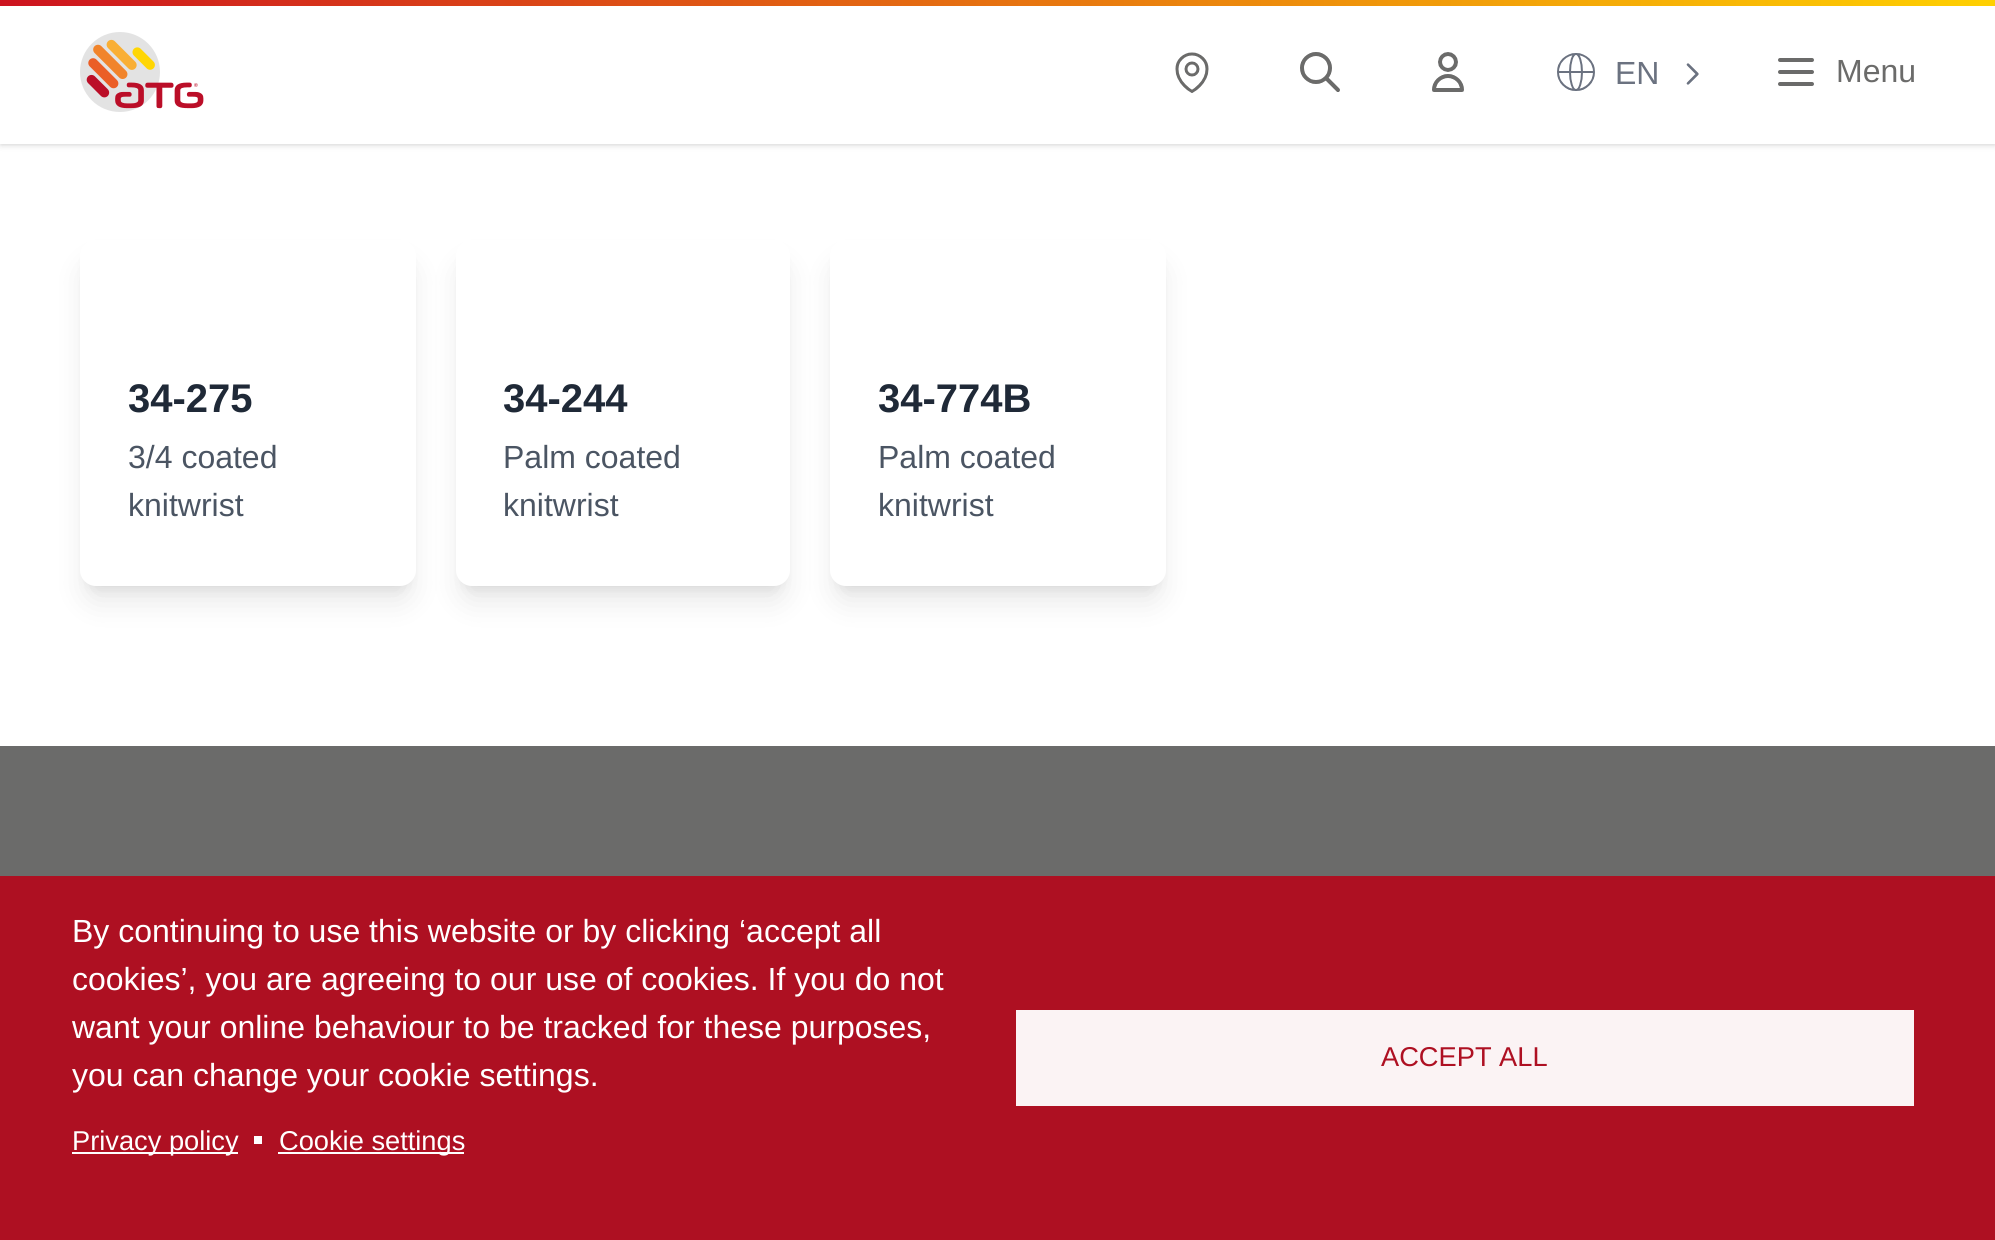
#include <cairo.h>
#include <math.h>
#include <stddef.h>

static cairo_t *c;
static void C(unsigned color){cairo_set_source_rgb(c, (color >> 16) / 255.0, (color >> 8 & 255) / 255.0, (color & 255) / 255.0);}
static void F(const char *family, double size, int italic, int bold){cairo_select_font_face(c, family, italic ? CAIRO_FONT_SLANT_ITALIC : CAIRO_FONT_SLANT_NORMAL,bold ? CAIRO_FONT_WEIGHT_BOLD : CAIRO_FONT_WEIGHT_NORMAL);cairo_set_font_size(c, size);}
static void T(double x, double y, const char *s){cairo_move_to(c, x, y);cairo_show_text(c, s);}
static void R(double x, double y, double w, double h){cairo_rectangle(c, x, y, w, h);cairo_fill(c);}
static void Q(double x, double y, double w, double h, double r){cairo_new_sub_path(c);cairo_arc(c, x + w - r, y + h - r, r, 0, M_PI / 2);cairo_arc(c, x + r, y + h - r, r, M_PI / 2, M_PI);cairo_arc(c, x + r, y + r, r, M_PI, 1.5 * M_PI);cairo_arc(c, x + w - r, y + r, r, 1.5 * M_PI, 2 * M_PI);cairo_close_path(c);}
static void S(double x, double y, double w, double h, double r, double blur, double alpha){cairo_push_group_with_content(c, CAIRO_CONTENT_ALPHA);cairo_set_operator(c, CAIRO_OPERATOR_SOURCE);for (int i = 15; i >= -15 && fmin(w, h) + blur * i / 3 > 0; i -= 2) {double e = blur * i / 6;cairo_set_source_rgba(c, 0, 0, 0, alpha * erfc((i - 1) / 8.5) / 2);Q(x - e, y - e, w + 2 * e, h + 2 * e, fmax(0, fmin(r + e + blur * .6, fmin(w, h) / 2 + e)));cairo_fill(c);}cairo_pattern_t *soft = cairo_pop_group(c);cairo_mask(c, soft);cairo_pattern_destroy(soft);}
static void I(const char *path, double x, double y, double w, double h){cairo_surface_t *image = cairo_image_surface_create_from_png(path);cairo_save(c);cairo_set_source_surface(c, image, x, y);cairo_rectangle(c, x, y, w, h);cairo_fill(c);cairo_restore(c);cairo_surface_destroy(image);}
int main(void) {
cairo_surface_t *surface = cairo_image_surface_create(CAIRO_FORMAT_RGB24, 1995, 1240);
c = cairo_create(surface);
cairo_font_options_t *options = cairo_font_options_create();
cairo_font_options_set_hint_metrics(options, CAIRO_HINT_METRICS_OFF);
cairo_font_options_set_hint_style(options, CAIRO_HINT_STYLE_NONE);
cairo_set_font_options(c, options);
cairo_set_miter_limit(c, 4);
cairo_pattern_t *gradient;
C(0xffffff);
cairo_paint(c);
C(0x000000);
S(2,4,1992,140,0,2,.1);
S(0,2,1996,144,0,3,.1);
C(0xffffff);
R(0,6,1995,138);
gradient = cairo_pattern_create_linear(0,3,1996,3);
cairo_pattern_add_color_stop_rgba(gradient,0,0.804,0.075,0.122,1);
cairo_pattern_add_color_stop_rgba(gradient,1,1,0.816,0.004,1);
cairo_set_source(c,gradient);
cairo_pattern_destroy(gradient);
R(0,0,1995,6);
I("1.png",80,32,124,80);
I("2.png",1175,52,34,41);
I("3.png",1300,52,40,40);
I("4.png",1432,52,32,40);
I("5.png",1557,53,38,38);
F("Liberation Sans",32,0,0);
C(0x6b7280);
T(1615,84,"EN");
I("6.png",1686,63,13,22);
cairo_new_path(c);
cairo_move_to(c,1780,60);
cairo_line_to(c,1812,60);
cairo_move_to(c,1780,72);
cairo_line_to(c,1812,72);
cairo_move_to(c,1780,84);
cairo_line_to(c,1812,84);
C(0x6b6b6a);
cairo_set_line_width(c,4);
cairo_set_line_cap(c,CAIRO_LINE_CAP_ROUND);
cairo_set_line_join(c,CAIRO_LINE_JOIN_ROUND);
cairo_stroke(c);
T(1836,82,"Menu");
C(0x000000);
S(88,256,320,330,8,6,.1);
S(86,266,324,334,10,15,.1);
C(0xffffff);
Q(80,240,336,346,16);
cairo_fill(c);
F("Liberation Sans",40,0,1);
C(0x1f2937);
T(128,412,"34-275");
F("Liberation Sans",32,0,0);
C(0x4b5563);
T(128,468,"3/4 coated");
T(128,516,"knitwrist");
C(0x000000);
S(464,256,318,330,8,6,.1);
S(462,266,322,334,10,15,.1);
C(0xffffff);
Q(456,240,334,346,16);
cairo_fill(c);
F("Liberation Sans",40,0,1);
C(0x1f2937);
T(503,412,"34-244");
F("Liberation Sans",32,0,0);
C(0x4b5563);
T(503,468,"Palm coated");
T(503,516,"knitwrist");
C(0x000000);
S(838,256,320,330,8,6,.1);
S(836,266,324,334,10,15,.1);
C(0xffffff);
Q(830,240,336,346,16);
cairo_fill(c);
F("Liberation Sans",40,0,1);
C(0x1f2937);
T(878,412,"34-774B");
F("Liberation Sans",32,0,0);
C(0x4b5563);
T(878,468,"Palm coated");
T(878,516,"knitwrist");
C(0x6b6b6a);
R(0,746,1995,130);
C(0xae1022);
R(0,876,1995,364);
C(0xffffff);
T(72,942,"By continuing to use this website or by clicking ‘accept all");
T(72,990,"cookies’, you are agreeing to our use of cookies. If you do not");
T(72,1038,"want your online behaviour to be tracked for these purposes,");
T(72,1086,"you can change your cookie settings.");
R(72,1152,166,2);
F("Liberation Sans",27.25,0,0);
T(72,1150,"Privacy policy");
R(254,1136,8,8);
R(278,1152,186,2);
T(279,1150,"Cookie settings");
C(0xfbf3f4);
R(1016,1010,898,96);
C(0xae1022);
T(1381,1066,"ACCEPT ALL");
cairo_surface_write_to_png(surface, "o.png");
cairo_font_options_destroy(options);
cairo_destroy(c);
cairo_surface_destroy(surface);
return 0;
}
